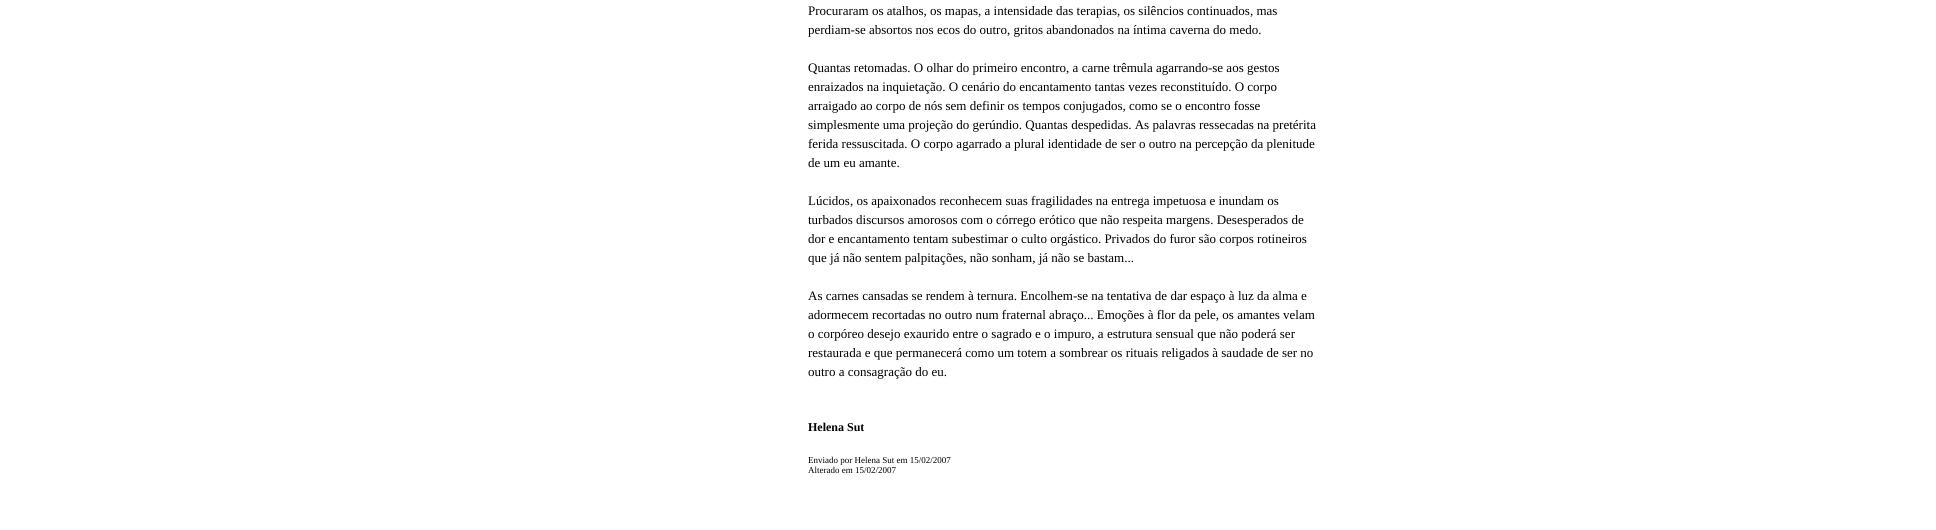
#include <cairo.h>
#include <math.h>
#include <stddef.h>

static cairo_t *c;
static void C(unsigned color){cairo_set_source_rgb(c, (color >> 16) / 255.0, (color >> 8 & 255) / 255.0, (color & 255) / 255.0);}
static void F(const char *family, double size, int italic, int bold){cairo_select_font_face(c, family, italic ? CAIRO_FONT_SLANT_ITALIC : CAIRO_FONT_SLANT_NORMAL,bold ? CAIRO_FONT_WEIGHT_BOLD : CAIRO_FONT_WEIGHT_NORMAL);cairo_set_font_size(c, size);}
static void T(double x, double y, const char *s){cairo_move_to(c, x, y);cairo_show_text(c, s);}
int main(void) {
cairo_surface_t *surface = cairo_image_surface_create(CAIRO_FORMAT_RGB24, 1936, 530);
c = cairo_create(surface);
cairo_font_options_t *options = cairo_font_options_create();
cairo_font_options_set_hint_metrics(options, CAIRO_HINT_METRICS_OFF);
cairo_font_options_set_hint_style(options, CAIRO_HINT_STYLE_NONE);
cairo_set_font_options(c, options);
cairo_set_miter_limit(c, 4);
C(0xffffff);
cairo_paint(c);
F("Liberation Serif",13,0,0);
C(0x000000);
T(808,15,"Procuraram os atalhos, os mapas, a intensidade das terapias, os silêncios continuados, mas");
T(808,34,"perdiam-se absortos nos ecos do outro, gritos abandonados na íntima caverna do medo.");
T(808,72,"Quantas retomadas. O olhar do primeiro encontro, a carne trêmula agarrando-se aos gestos");
T(808,91,"enraizados na inquietação. O cenário do encantamento tantas vezes reconstituído. O corpo");
T(808,110,"arraigado ao corpo de nós sem definir os tempos conjugados, como se o encontro fosse");
T(808,129,"simplesmente uma projeção do gerúndio. Quantas despedidas. As palavras ressecadas na pretérita");
T(808,148,"ferida ressuscitada. O corpo agarrado a plural identidade de ser o outro na percepção da plenitude");
T(808,167,"de um eu amante.");
T(808,205,"Lúcidos, os apaixonados reconhecem suas fragilidades na entrega impetuosa e inundam os");
T(808,224,"turbados discursos amorosos com o córrego erótico que não respeita margens. Desesperados de");
T(808,243,"dor e encantamento tentam subestimar o culto orgástico. Privados do furor são corpos rotineiros");
T(808,262,"que já não sentem palpitações, não sonham, já não se bastam...");
T(808,300,"As carnes cansadas se rendem à ternura. Encolhem-se na tentativa de dar espaço à luz da alma e");
T(808,319,"adormecem recortadas no outro num fraternal abraço... Emoções à flor da pele, os amantes velam");
T(808,338,"o corpóreo desejo exaurido entre o sagrado e o impuro, a estrutura sensual que não poderá ser");
T(808,357,"restaurada e que permanecerá como um totem a sombrear os rituais religados à saudade de ser no");
T(808,376,"outro a consagração do eu.");
F("Liberation Serif",12,0,1);
T(808,431,"Helena Sut");
F("Liberation Serif",9,0,0);
T(808,463,"Enviado por Helena Sut em 15/02/2007");
T(808,473,"Alterado em 15/02/2007");
cairo_surface_write_to_png(surface, "o.png");
cairo_font_options_destroy(options);
cairo_destroy(c);
cairo_surface_destroy(surface);
return 0;
}
